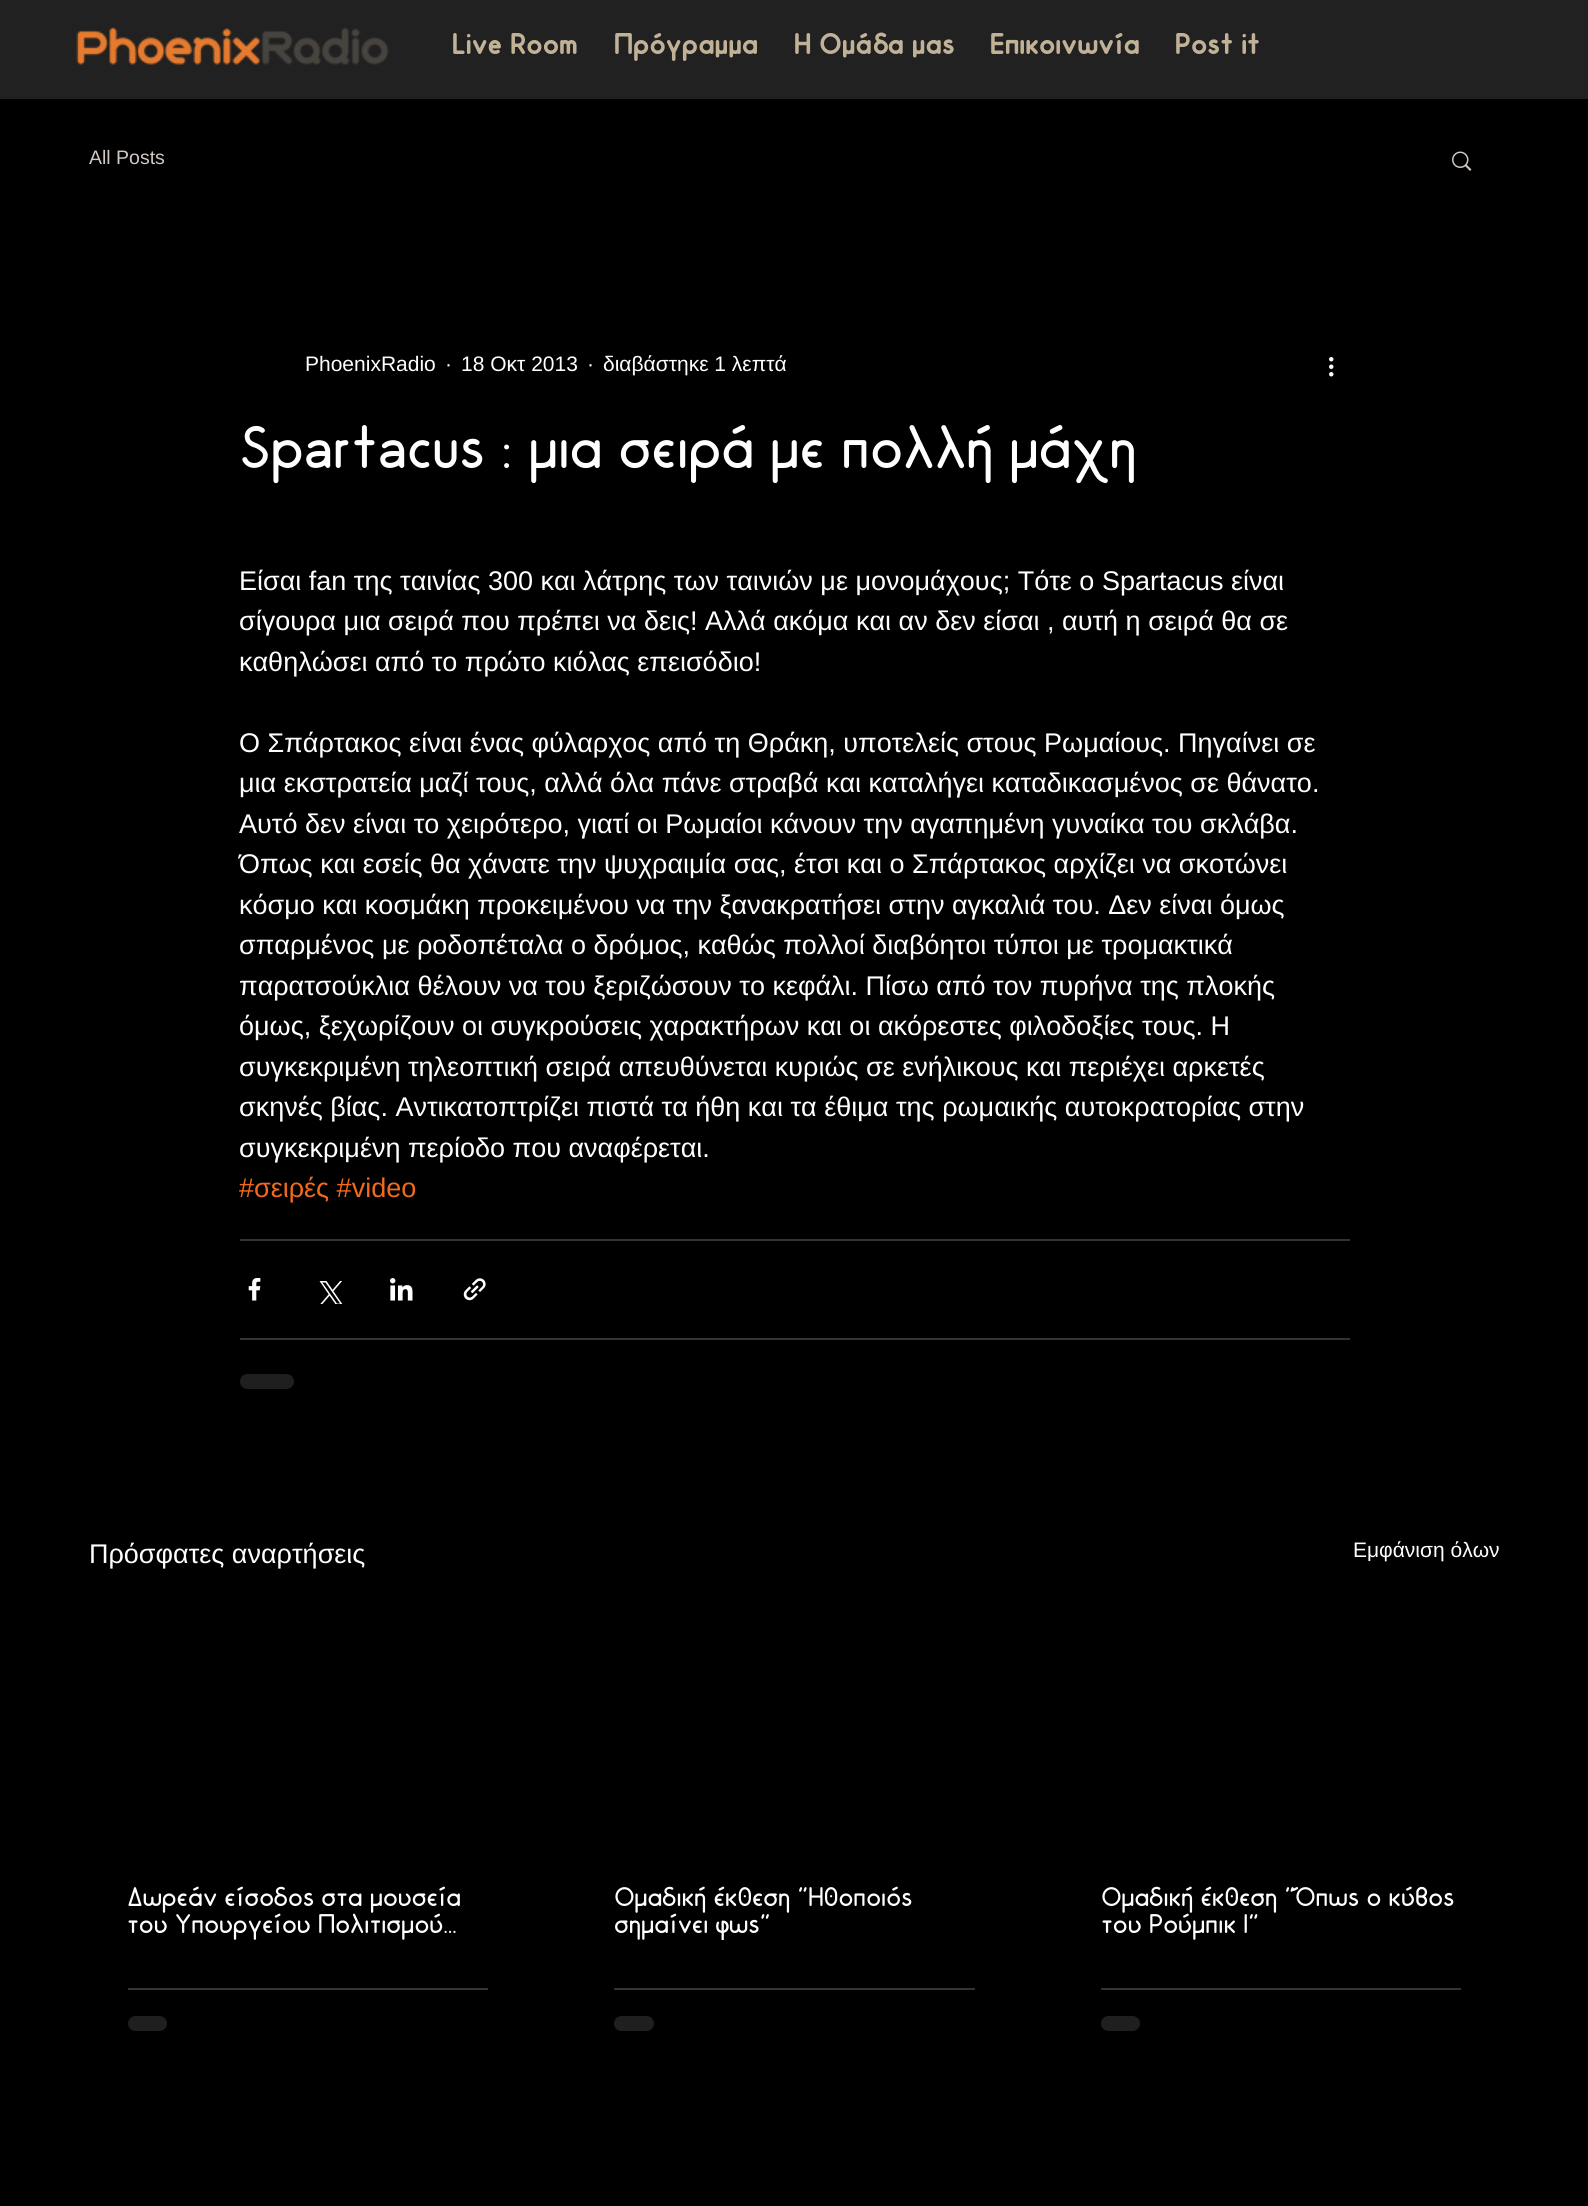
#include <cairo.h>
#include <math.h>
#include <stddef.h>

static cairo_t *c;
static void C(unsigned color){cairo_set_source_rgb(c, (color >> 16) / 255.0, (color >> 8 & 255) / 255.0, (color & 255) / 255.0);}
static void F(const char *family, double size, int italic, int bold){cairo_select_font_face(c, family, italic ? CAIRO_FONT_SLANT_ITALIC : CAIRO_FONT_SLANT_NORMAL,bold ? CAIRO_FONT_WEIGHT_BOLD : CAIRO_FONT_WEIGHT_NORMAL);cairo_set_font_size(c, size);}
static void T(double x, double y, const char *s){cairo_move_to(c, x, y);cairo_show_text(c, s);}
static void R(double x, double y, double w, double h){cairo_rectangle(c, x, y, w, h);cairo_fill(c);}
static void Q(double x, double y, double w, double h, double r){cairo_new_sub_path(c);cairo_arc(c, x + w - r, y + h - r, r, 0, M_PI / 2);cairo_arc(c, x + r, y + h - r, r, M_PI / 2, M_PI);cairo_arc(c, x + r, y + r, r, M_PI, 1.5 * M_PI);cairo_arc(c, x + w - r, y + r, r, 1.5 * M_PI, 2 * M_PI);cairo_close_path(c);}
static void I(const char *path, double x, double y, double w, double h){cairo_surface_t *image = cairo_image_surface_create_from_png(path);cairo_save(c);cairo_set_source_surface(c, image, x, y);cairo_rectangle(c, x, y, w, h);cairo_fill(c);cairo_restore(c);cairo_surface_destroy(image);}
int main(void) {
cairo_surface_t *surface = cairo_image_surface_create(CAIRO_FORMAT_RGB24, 1588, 2206);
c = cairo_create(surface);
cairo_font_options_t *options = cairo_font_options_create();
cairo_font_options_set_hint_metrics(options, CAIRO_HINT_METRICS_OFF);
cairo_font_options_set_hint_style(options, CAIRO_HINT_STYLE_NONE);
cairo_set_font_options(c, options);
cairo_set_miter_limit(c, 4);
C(0x000000);
cairo_paint(c);
C(0x212121);
R(0,0,1588,99);
I("1.png",76,27,313,38);
F("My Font",30,0,1);
C(0xc1b297);
T(452,54,"Live Room");
T(614,54,"Πρόγραμμα");
T(794,54,"Η Ομάδα μας");
T(990,54,"Επικοινωνία");
T(1175,54,"Post it");
F("Liberation Sans",19.5,0,0);
C(0xcfc7c2);
T(89,164,"All Posts");
I("2.png",1452,151,20,20);
F("Liberation Sans",21,0,0);
C(0xffffff);
T(305,371,"PhoenixRadio");
T(445,371,"·");
T(461,371,"18 Οκτ 2013");
T(587,371,"·");
T(603,371,"διαβάστηκε 1 λεπτά");
I("3.png",1329,357,5,20);
F("My Font Light",60,0,0);
T(239,468,"Spartacus : μια σειρά με πολλή μάχη");
F("Liberation Sans",27,0,0);
T(239,590,"Είσαι fan της ταινίας 300 και λάτρης των ταινιών με μονομάχους; Τότε ο Spartacus είναι");
T(239,630,"σίγουρα μια σειρά που πρέπει να δεις! Αλλά ακόμα και αν δεν είσαι , αυτή η σειρά θα σε");
T(239,671,"καθηλώσει από το πρώτο κιόλας επεισόδιο!");
T(239,752,"Ο Σπάρτακος είναι ένας φύλαρχος από τη Θράκη, υποτελείς στους Ρωμαίους. Πηγαίνει σε");
T(239,792,"μια εκστρατεία μαζί τους, αλλά όλα πάνε στραβά και καταλήγει καταδικασμένος σε θάνατο.");
T(239,833,"Αυτό δεν είναι το χειρότερο, γιατί οι Ρωμαίοι κάνουν την αγαπημένη γυναίκα του σκλάβα.");
T(239,873,"Όπως και εσείς θα χάνατε την ψυχραιμία σας, έτσι και ο Σπάρτακος αρχίζει να σκοτώνει");
T(239,914,"κόσμο και κοσμάκη προκειμένου να την ξανακρατήσει στην αγκαλιά του. Δεν είναι όμως");
T(239,954,"σπαρμένος με ροδοπέταλα ο δρόμος, καθώς πολλοί διαβόητοι τύποι με τρομακτικά");
T(239,995,"παρατσούκλια θέλουν να του ξεριζώσουν το κεφάλι. Πίσω από τον πυρήνα της πλοκής");
T(239,1035,"όμως, ξεχωρίζουν οι συγκρούσεις χαρακτήρων και οι ακόρεστες φιλοδοξίες τους. Η");
T(239,1076,"συγκεκριμένη τηλεοπτική σειρά απευθύνεται κυριώς σε ενήλικους και περιέχει αρκετές");
T(239,1116,"σκηνές βίας. Αντικατοπτρίζει πιστά τα ήθη και τα έθιμα της ρωμαικής αυτοκρατορίας στην");
T(239,1157,"συγκεκριμένη περίοδο που αναφέρεται.");
C(0xf26a1b);
T(239,1197,"#σειρές #video");
C(0x333333);
R(240,1239,1110,2);
I("4.png",248,1278,13,23);
I("5.png",319,1281,23,23);
I("6.png",390,1278,23,23);
I("7.png",463,1278,23,23);
R(240,1338,1110,2);
C(0x1f1f1f);
Q(240,1374,54,15,7.5);
cairo_fill(c);
C(0xffffff);
T(89,1563,"Πρόσφατες αναρτήσεις");
F("Liberation Sans",21,0,0);
T(1353,1557,"Εμφάνιση όλων");
F("My Font Light",27,0,0);
T(127,1906,"Δωρεάν είσοδος στα μουσεία");
T(127,1933,"του Υπουργείου Πολιτισμού…");
C(0x333333);
R(128,1988,360,2);
C(0x1f1f1f);
Q(128,2016,39,15,7.5);
cairo_fill(c);
C(0xffffff);
T(614,1906,"Ομαδική έκθεση \"Ηθοποιός");
cairo_save(c);
cairo_rectangle(c,614,1886,361,54);
cairo_clip(c);
T(614,1933,"σημαίνει φως\"");
cairo_restore(c);
C(0x333333);
R(614,1988,361,2);
C(0x1f1f1f);
Q(614,2016,40,15,7.5);
cairo_fill(c);
C(0xffffff);
T(1101,1906,"Ομαδική έκθεση \"Όπως ο κύβος");
T(1101,1933,"του Ρούμπικ I\"");
C(0x333333);
R(1101,1988,360,2);
C(0x1f1f1f);
Q(1101,2016,39,15,7.5);
cairo_fill(c);
cairo_surface_write_to_png(surface, "o.png");
cairo_font_options_destroy(options);
cairo_destroy(c);
cairo_surface_destroy(surface);
return 0;
}
